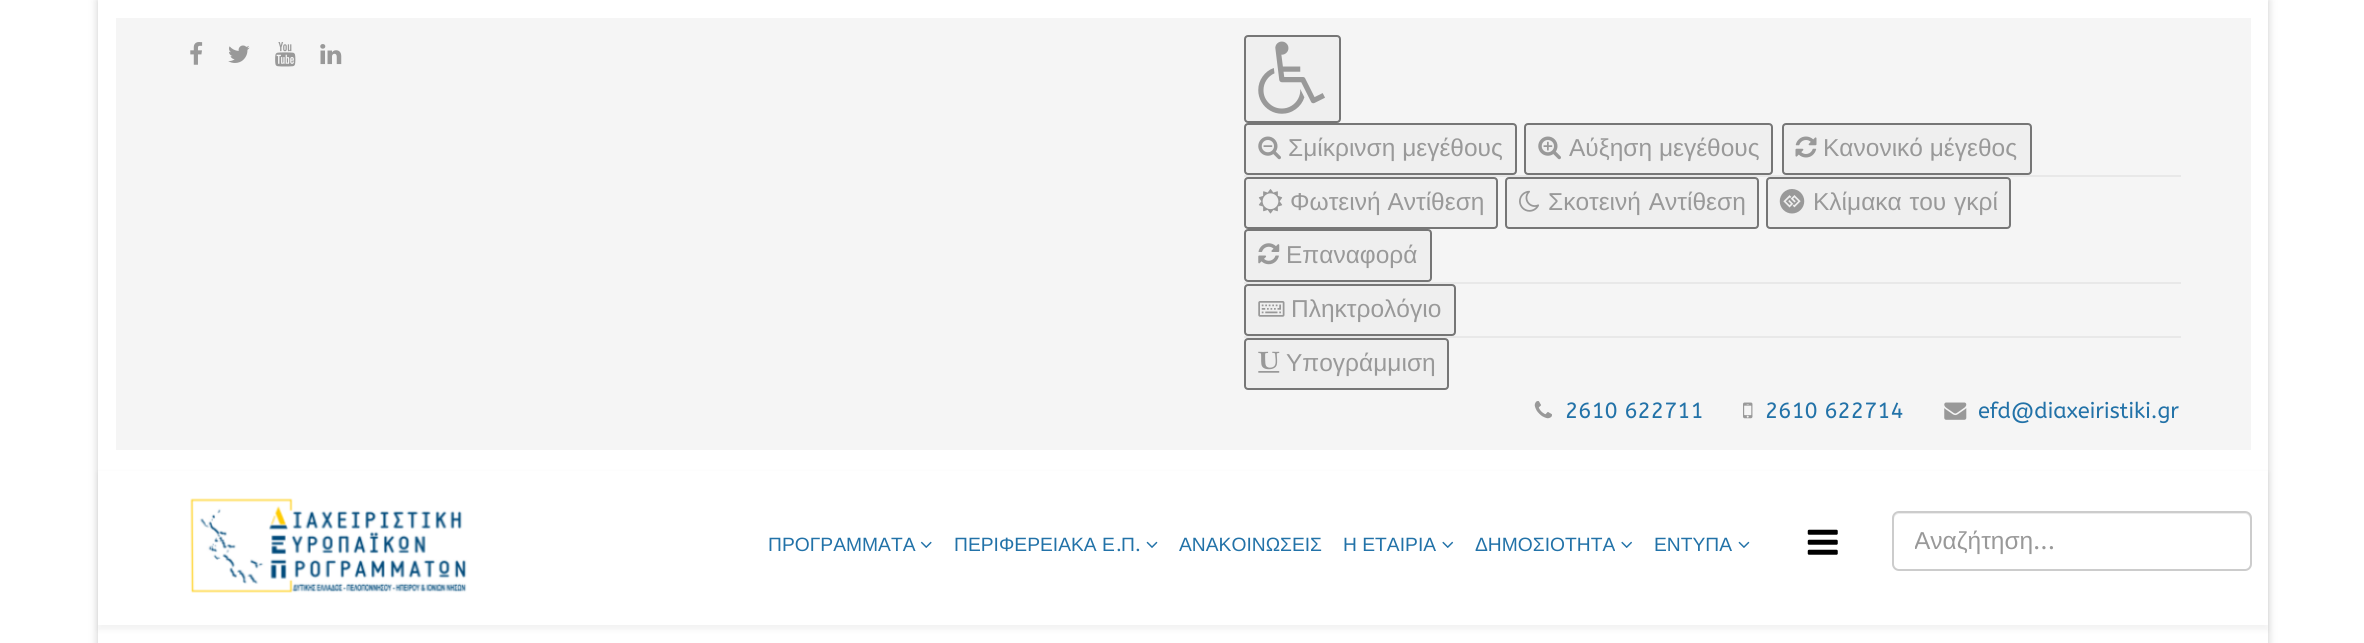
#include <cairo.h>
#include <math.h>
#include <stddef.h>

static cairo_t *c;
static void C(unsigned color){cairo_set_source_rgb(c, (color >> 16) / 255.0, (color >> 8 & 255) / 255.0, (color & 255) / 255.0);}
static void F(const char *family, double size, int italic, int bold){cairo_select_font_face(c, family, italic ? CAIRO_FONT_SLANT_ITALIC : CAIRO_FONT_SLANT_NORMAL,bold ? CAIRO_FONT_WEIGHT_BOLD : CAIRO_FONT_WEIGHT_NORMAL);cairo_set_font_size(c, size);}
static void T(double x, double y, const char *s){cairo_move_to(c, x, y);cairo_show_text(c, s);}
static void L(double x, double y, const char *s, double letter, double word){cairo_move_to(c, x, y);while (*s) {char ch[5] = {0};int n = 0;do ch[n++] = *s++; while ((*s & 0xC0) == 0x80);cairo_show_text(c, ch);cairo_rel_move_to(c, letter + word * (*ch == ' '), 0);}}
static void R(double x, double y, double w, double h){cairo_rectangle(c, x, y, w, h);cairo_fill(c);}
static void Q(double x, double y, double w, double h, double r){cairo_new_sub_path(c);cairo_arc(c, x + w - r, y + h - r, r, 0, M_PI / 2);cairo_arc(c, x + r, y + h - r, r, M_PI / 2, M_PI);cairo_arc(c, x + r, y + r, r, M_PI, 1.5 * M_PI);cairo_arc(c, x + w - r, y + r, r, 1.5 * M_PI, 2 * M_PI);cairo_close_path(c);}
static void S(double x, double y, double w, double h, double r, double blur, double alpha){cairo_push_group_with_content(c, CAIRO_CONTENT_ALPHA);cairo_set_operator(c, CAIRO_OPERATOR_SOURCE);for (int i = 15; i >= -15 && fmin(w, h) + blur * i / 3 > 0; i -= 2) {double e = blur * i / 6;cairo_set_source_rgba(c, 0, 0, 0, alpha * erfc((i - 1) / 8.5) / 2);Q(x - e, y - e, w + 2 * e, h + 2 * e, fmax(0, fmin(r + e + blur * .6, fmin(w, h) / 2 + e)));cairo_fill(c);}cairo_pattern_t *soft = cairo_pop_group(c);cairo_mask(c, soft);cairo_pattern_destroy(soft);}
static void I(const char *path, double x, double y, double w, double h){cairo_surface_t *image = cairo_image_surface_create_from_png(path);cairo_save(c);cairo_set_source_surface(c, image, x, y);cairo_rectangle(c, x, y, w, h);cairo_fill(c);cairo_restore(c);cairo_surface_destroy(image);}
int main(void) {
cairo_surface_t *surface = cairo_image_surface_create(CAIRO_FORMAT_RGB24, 2364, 643);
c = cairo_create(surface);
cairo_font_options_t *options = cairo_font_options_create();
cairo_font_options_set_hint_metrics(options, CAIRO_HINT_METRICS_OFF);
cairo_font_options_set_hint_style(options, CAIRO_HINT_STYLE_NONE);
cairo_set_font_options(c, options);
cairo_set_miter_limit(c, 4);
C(0xffffff);
cairo_paint(c);
cairo_save(c);
cairo_set_fill_rule(c,CAIRO_FILL_RULE_EVEN_ODD);
cairo_new_path(c);
cairo_move_to(c,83,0);
cairo_line_to(c,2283,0);
cairo_line_to(c,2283,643);
cairo_line_to(c,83,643);
cairo_close_path(c);
cairo_move_to(c,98,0);
cairo_line_to(c,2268,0);
cairo_line_to(c,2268,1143);
cairo_line_to(c,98,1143);
cairo_close_path(c);
cairo_clip(c);
C(0x000000);
S(98,0,2170,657,0,4.5,.2);
cairo_restore(c);
C(0xf5f5f5);
R(116,18,2135,432);
I("1.png",190,42,13,23);
I("2.png",228,45,22,18);
I("3.png",275,42,21,25);
I("4.png",320,44,22,21);
C(0xefefef);
Q(1245,36,95,86,3);
cairo_fill_preserve(c);
C(0x767676);
cairo_stroke(c);
I("5.png",1258,41,67,73);
C(0xe8e8e8);
R(1244,175,937,2);
C(0xefefef);
Q(1245,124,271,50,3);
cairo_fill_preserve(c);
C(0x767676);
cairo_stroke(c);
I("6.png",1258,136,23,24);
F("Liberation Sans",24.5,0,0);
C(0x999999);
T(1288,156,"Σμίκρινση μεγέθους");
C(0xefefef);
Q(1525,124,247,50,3);
cairo_fill_preserve(c);
C(0x767676);
cairo_stroke(c);
I("7.png",1538,136,23,24);
C(0x999999);
T(1569,156,"Αύξηση μεγέθους");
C(0xefefef);
Q(1783,124,248,50,3);
cairo_fill_preserve(c);
C(0x767676);
cairo_stroke(c);
I("8.png",1795,136,22,22);
C(0x999999);
T(1823,156,"Κανονικό μέγεθος");
C(0xe8e8e8);
R(1244,282,937,2);
C(0xefefef);
Q(1245,178,252,50,3);
cairo_fill_preserve(c);
C(0x767676);
cairo_stroke(c);
I("9.png",1258,189,25,25);
C(0x999999);
T(1290,210,"Φωτεινή Αντίθεση");
C(0xefefef);
Q(1506,178,252,50,3);
cairo_fill_preserve(c);
C(0x767676);
cairo_stroke(c);
I("10.png",1519,190,20,22);
C(0x999999);
L(1548,210,"Σκοτεινή Αντίθεση",0,1);
C(0xefefef);
Q(1767,178,243,50,3);
cairo_fill_preserve(c);
C(0x767676);
cairo_stroke(c);
I("11.png",1779,189,26,25);
C(0x999999);
L(1813,210,"Κλίμακα του γκρί",0,1);
C(0xefefef);
Q(1245,230,186,51,3);
cairo_fill_preserve(c);
C(0x767676);
cairo_stroke(c);
I("12.png",1258,243,22,22);
C(0x999999);
T(1286,263,"Επαναφορά");
C(0xe8e8e8);
R(1244,336,937,2);
C(0xefefef);
Q(1245,285,210,50,3);
cairo_fill_preserve(c);
C(0x767676);
cairo_stroke(c);
I("13.png",1258,301,27,16);
C(0x999999);
T(1291,317,"Πληκτρολόγιο");
C(0xefefef);
Q(1245,339,203,50,3);
cairo_fill_preserve(c);
C(0x767676);
cairo_stroke(c);
I("14.png",1258,351,22,22);
C(0x999999);
T(1286,371,"Υπογράμμιση");
I("15.png",1534,401,18,18);
F("ABeeZee",22,0,0);
C(0x2272a8);
T(1565,418,"2610 622711");
I("16.png",1743,402,10,17);
T(1765,418,"2610 622714");
I("17.png",1944,402,23,18);
T(1978,418,"efd@diaxeiristiki.gr");
C(0x000000);
S(98,473,2170,157,0,2.5,.05);
C(0xffffff);
R(98,471,2170,154);
I("18.png",190,498,277,95);
F("Liberation Sans",19.25,0,0);
C(0x2272a8);
T(768,551,"ΠΡΟΓΡΑΜΜΑΤΑ");
I("19.png",920,541,12,7);
T(954,551,"ΠΕΡΙΦΕΡΕΙΑΚΑ Ε");
T(1121,551,"Π");
I("20.png",1146,541,12,7);
F("ABeeZee",19.25,0,0);
T(1116,551,".");
T(1135,551,".");
F("Liberation Sans",19.25,0,0);
T(1179,551,"ΑΝΑΚΟΙΝΩΣΕΙΣ");
T(1343,551,"Η ΕΤΑΙΡΙΑ");
I("21.png",1442,541,12,7);
T(1475,551,"ΔΗΜΟΣΙΟΤΗΤΑ");
I("22.png",1621,541,11,7);
T(1654,551,"ΕΝΤΥΠΑ");
I("23.png",1738,541,12,7);
I("24.png",1807,529,31,26);
C(0xececec);
cairo_new_path(c);
cairo_move_to(c,1899,514);
cairo_line_to(c,2245,514);
cairo_curve_to(c,2248,514,2250,517,2250,520);
cairo_line_to(c,2250,565);
cairo_line_to(c,2249,568);
cairo_curve_to(c,2250,567,2251,565,2251,564);
cairo_line_to(c,2251,518);
cairo_curve_to(c,2251,515,2249,513,2246,513);
cairo_line_to(c,1899,513);
cairo_curve_to(c,1896,513,1894,515,1894,518);
cairo_line_to(c,1894,520);
cairo_curve_to(c,1894,517,1896,514,1899,514);
cairo_close_path(c);
cairo_fill(c);
Q(1893,512,358,58,6);
C(0xcccccc);
cairo_stroke(c);
cairo_save(c);
cairo_rectangle(c,1915,527,315,30);
cairo_clip(c);
F("Liberation Sans",24.5,0,0);
C(0x999999);
T(1914,549,"Αναζήτηση");
cairo_restore(c);
F("ABeeZee",24.5,0,0);
C(0x999999);
T(2033,549,"...");
cairo_surface_write_to_png(surface, "o.png");
cairo_font_options_destroy(options);
cairo_destroy(c);
cairo_surface_destroy(surface);
return 0;
}
